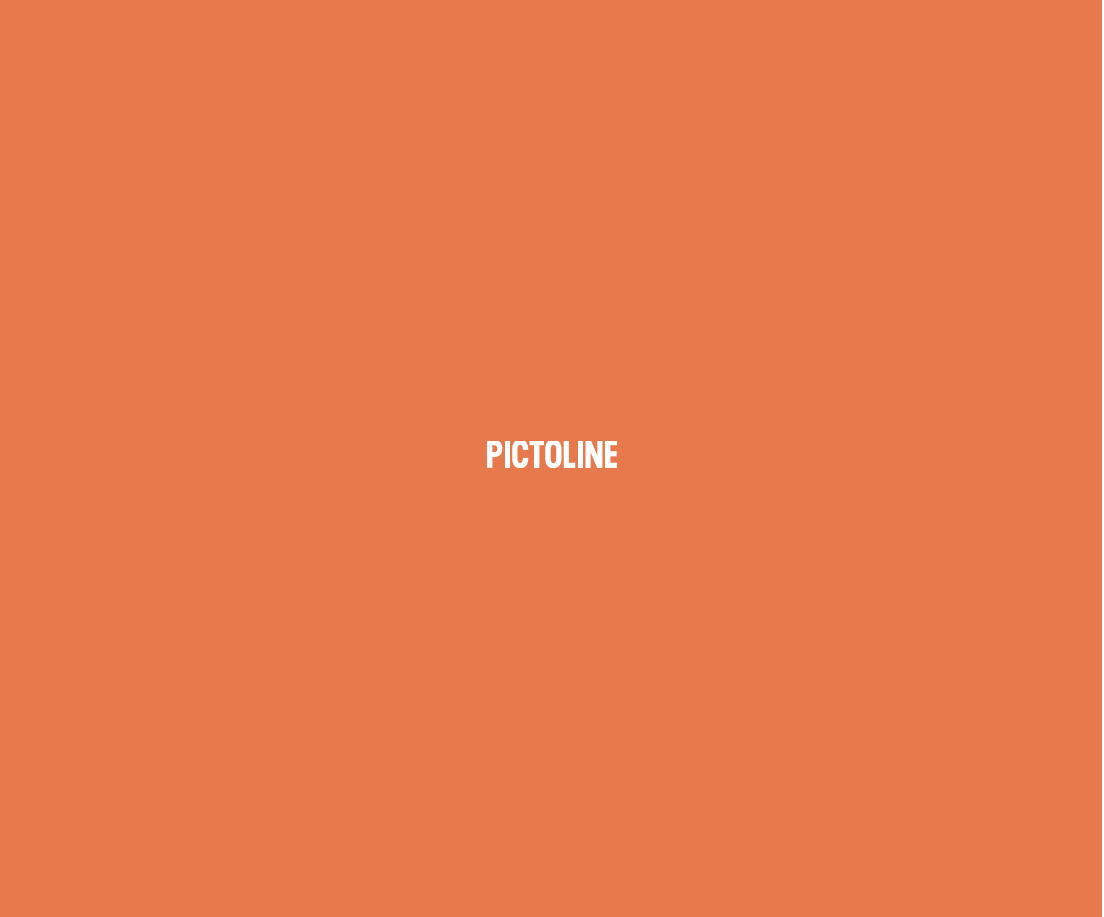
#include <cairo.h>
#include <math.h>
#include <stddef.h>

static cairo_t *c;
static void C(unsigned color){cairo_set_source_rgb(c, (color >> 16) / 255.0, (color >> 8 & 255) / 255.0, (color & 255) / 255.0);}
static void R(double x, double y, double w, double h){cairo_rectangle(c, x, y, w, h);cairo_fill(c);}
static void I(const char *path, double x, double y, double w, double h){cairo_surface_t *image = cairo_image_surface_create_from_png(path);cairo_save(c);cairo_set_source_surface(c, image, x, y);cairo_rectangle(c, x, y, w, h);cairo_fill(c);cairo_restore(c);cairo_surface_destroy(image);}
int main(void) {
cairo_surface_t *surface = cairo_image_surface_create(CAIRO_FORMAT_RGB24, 1104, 917);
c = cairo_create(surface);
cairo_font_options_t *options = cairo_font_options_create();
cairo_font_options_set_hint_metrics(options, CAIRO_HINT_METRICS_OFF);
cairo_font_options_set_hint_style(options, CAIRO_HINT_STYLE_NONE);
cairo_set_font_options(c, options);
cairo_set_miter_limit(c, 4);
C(0xffffff);
cairo_paint(c);
C(0xe77a4c);
R(0,0,1102,917);
I("1.png",487,441,130,27);
cairo_surface_write_to_png(surface, "o.png");
cairo_font_options_destroy(options);
cairo_destroy(c);
cairo_surface_destroy(surface);
return 0;
}
